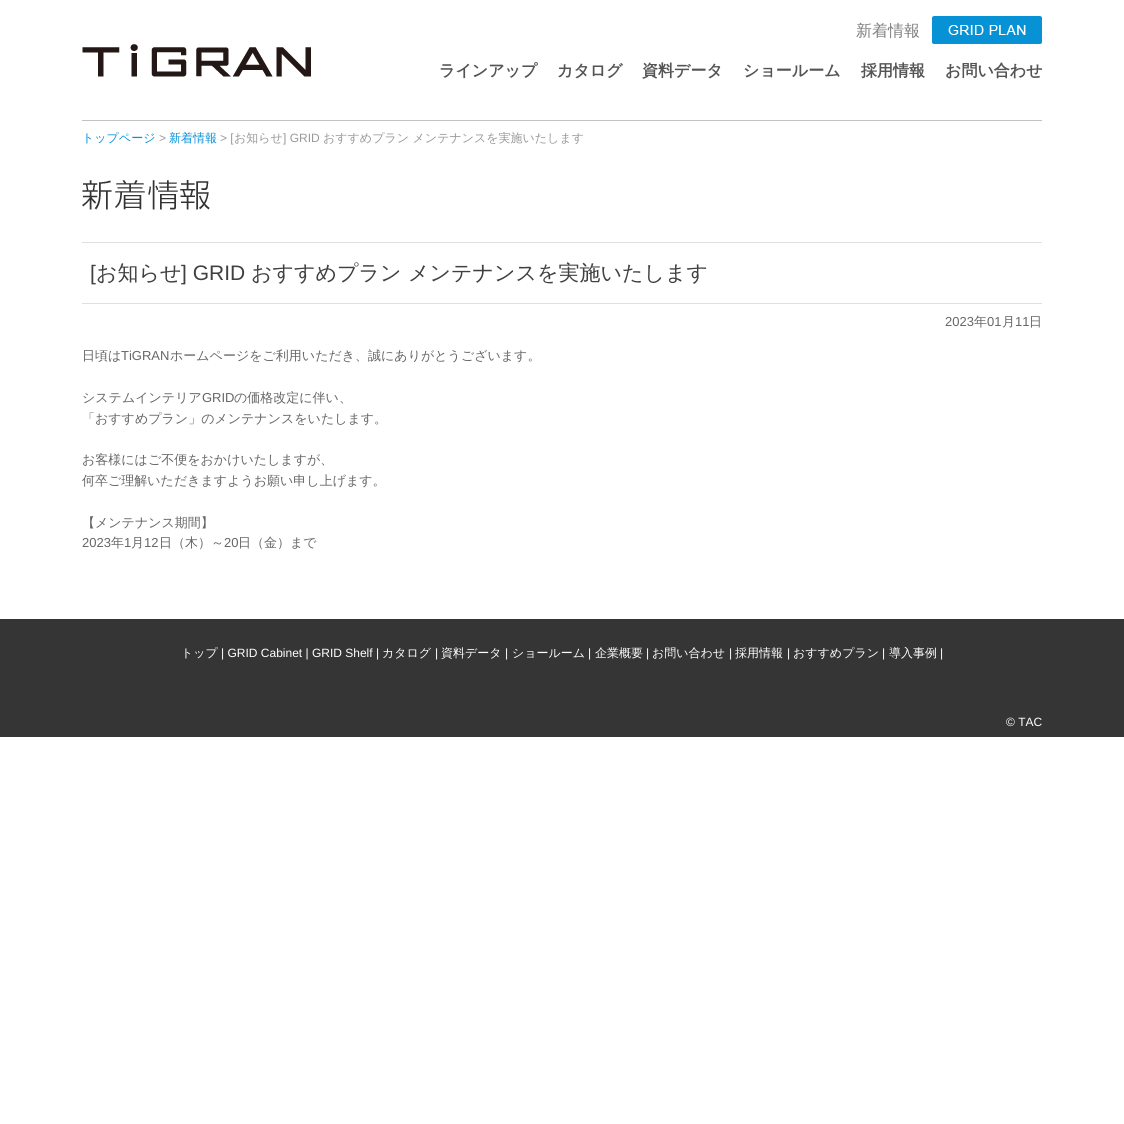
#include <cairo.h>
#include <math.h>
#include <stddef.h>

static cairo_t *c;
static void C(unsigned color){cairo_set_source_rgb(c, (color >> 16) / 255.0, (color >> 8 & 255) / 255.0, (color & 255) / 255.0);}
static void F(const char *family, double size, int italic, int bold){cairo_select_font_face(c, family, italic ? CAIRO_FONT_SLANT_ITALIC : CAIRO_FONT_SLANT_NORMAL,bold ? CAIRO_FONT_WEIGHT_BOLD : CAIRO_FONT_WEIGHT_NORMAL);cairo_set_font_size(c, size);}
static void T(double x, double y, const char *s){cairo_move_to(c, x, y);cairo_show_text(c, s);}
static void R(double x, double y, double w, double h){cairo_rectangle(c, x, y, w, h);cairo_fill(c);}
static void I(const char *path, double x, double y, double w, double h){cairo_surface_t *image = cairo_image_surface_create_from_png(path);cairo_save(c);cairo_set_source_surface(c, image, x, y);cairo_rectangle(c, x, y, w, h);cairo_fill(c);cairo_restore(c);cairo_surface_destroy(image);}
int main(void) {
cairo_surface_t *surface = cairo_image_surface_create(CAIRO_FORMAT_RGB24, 1124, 1124);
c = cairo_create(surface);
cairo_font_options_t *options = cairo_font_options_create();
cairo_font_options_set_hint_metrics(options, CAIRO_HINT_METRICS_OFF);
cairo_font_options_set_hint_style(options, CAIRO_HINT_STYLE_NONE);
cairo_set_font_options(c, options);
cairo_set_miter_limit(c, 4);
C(0xffffff);
cairo_paint(c);
I("1.png",82,44,229,33);
F("WenQuanYi Zen Hei Medium",16,0,0);
C(0x7e7e7e);
T(856,36,"新着情報");
I("2.png",932,16,110,28);
F("WenQuanYi Zen Hei",16,0,1);
C(0x545454);
T(439,76,"ラインアップ");
T(557,76,"カタログ");
T(642,76,"資料データ");
T(743,76,"ショールーム");
T(861,76,"採用情報");
T(945,76,"お問い合わせ");
C(0xc3c3c3);
R(82,120,960,1);
F("WenQuanYi Zen Hei Medium",12,0,0);
C(0x0792d6);
T(82,142,"トップページ");
F("Liberation Sans",12,0,0);
C(0x999999);
T(159,142,">");
F("WenQuanYi Zen Hei Medium",12,0,0);
C(0x0792d6);
T(169,142,"新着情報");
F("Liberation Sans",12,0,0);
C(0x999999);
T(220,142,"> [");
F("WenQuanYi Zen Hei Medium",12,0,0);
T(234,142,"お知らせ");
F("Liberation Sans",12,0,0);
T(283,142,"] GRID");
F("WenQuanYi Zen Hei Medium",12,0,0);
T(323,142,"おすすめプラン メンテナンスを実施いたします");
I("3.png",82,180,128,30);
C(0xdfdfdf);
R(82,242,960,1);
R(82,303,960,1);
F("Liberation Sans",21,0,0);
C(0x404040);
T(90,280,"[");
F("WenQuanYi Zen Hei Medium",21,0,0);
T(96,280,"お知らせ");
F("Liberation Sans",21,0,0);
T(181,280,"] GRID");
F("WenQuanYi Zen Hei Medium",21,0,0);
T(251,280,"おすすめプラン");
T(408,280,"メンテナンスを実施いたします");
F("Liberation Sans",13,0,0);
C(0x666666);
T(945,326,"2023");
F("WenQuanYi Zen Hei Medium",13,0,0);
T(974,326,"年");
F("Liberation Sans",13,0,0);
T(987,326,"01");
F("WenQuanYi Zen Hei Medium",13,0,0);
T(1002,326,"月");
F("Liberation Sans",13,0,0);
T(1015,326,"11");
F("WenQuanYi Zen Hei Medium",13,0,0);
T(1029,326,"日");
T(82,360,"日頃は");
F("Liberation Sans",13,0,0);
T(121,360,"TiGRAN");
F("WenQuanYi Zen Hei Medium",13,0,0);
T(170,360,"ホームページをご利用いただき、誠にありがとうございます。");
T(82,402,"システムインテリア");
F("Liberation Sans",13,0,0);
T(202,402,"GRID");
F("WenQuanYi Zen Hei Medium",13,0,0);
T(234,402,"の価格改定に伴い、");
T(82,423,"「おすすめプラン」のメンテナンスをいたします。");
T(82,464,"お客様にはご不便をおかけいたしますが、");
T(82,485,"何卒ご理解いただきますようお願い申し上げます。");
T(82,527,"【メンテナンス期間】");
F("Liberation Sans",13,0,0);
T(82,547,"2023");
F("WenQuanYi Zen Hei Medium",13,0,0);
T(111,547,"年");
F("Liberation Sans",13,0,0);
T(124,547,"1");
F("WenQuanYi Zen Hei Medium",13,0,0);
T(131,547,"月");
F("Liberation Sans",13,0,0);
T(144,547,"12");
F("WenQuanYi Zen Hei Medium",13,0,0);
T(159,547,"日（木）～");
F("Liberation Sans",13,0,0);
T(224,547,"20");
F("WenQuanYi Zen Hei Medium",13,0,0);
T(238,547,"日（金）まで");
C(0x353535);
R(0,619,1124,118);
F("WenQuanYi Zen Hei Medium",12,0,0);
C(0xffffff);
T(181,657,"トップ");
F("Liberation Sans",12,0,0);
T(221,657,"| GRID Cabinet | GRID Shelf |");
F("WenQuanYi Zen Hei Medium",12,0,0);
T(382,657,"カタログ");
F("Liberation Sans",12,0,0);
T(435,657,"|");
F("WenQuanYi Zen Hei Medium",12,0,0);
T(441,657,"資料データ");
F("Liberation Sans",12,0,0);
T(505,657,"|");
F("WenQuanYi Zen Hei Medium",12,0,0);
T(512,657,"ショールーム");
F("Liberation Sans",12,0,0);
T(588,657,"|");
F("WenQuanYi Zen Hei Medium",12,0,0);
T(595,657,"企業概要");
F("Liberation Sans",12,0,0);
T(646,657,"|");
F("WenQuanYi Zen Hei Medium",12,0,0);
T(652,657,"お問い合わせ");
F("Liberation Sans",12,0,0);
T(729,657,"|");
F("WenQuanYi Zen Hei Medium",12,0,0);
T(735,657,"採用情報");
F("Liberation Sans",12,0,0);
T(787,657,"|");
F("WenQuanYi Zen Hei Medium",12,0,0);
T(793,657,"おすすめプラン");
F("Liberation Sans",12,0,0);
T(882,657,"|");
F("WenQuanYi Zen Hei Medium",12,0,0);
T(889,657,"導入事例");
F("Liberation Sans",12,0,0);
T(940,657,"|");
T(1006,726,"© TAC");
cairo_surface_write_to_png(surface, "o.png");
cairo_font_options_destroy(options);
cairo_destroy(c);
cairo_surface_destroy(surface);
return 0;
}
